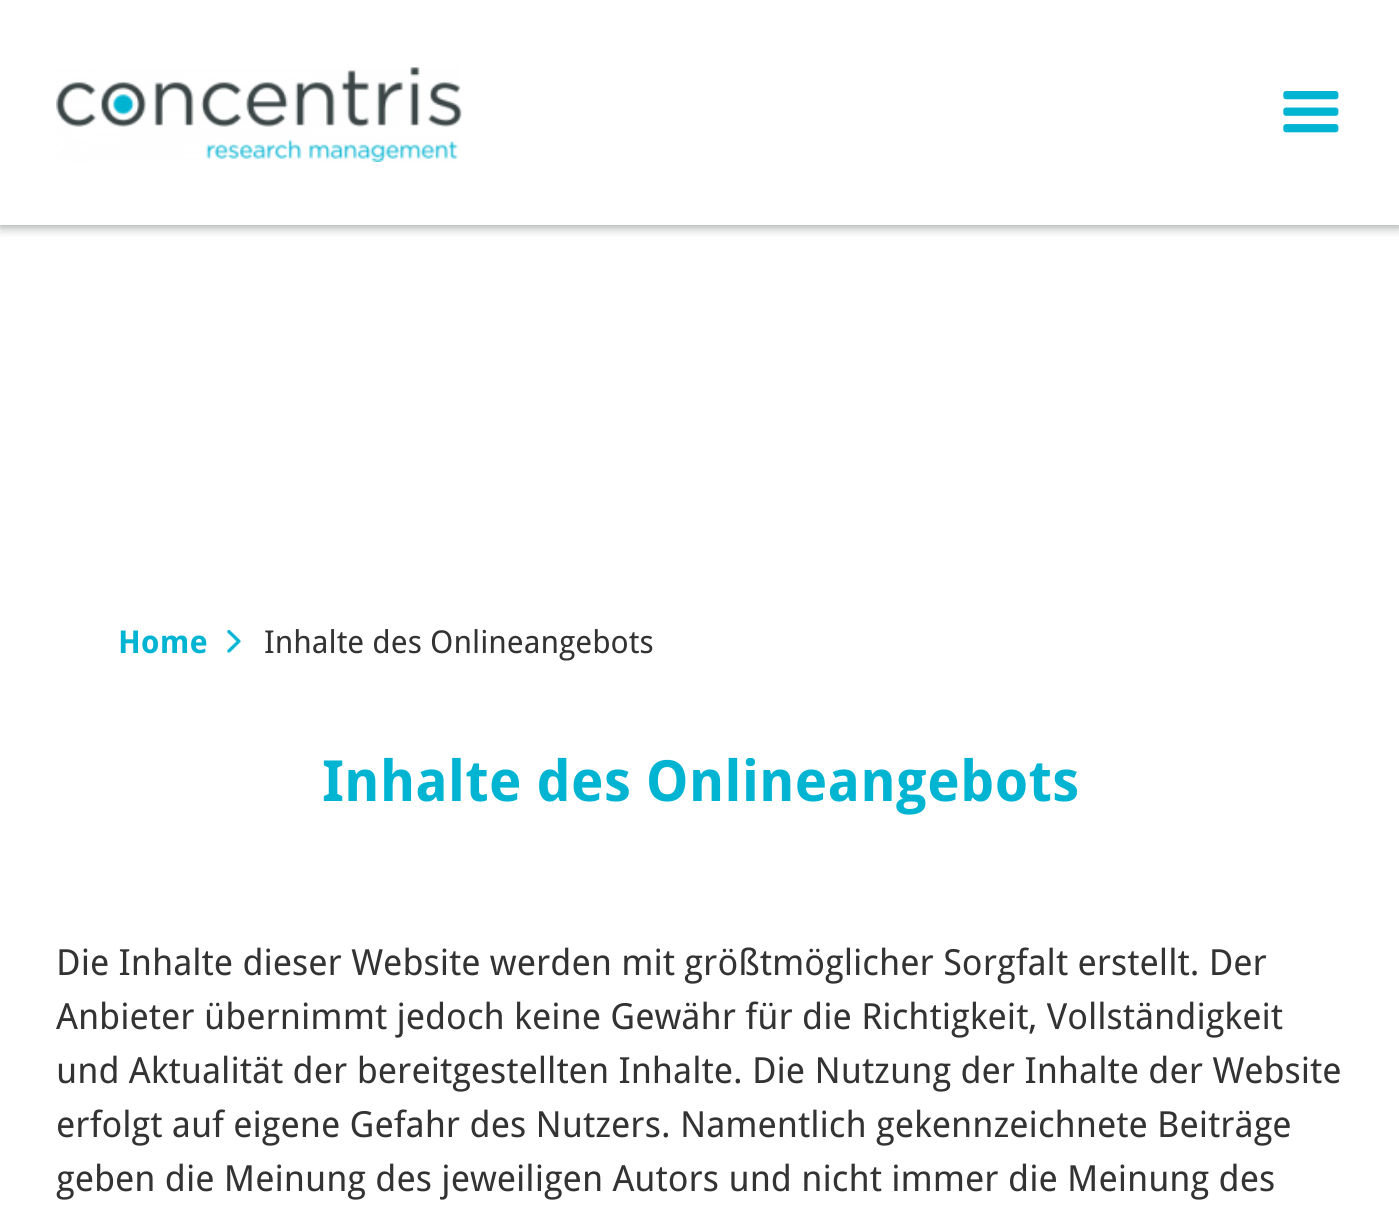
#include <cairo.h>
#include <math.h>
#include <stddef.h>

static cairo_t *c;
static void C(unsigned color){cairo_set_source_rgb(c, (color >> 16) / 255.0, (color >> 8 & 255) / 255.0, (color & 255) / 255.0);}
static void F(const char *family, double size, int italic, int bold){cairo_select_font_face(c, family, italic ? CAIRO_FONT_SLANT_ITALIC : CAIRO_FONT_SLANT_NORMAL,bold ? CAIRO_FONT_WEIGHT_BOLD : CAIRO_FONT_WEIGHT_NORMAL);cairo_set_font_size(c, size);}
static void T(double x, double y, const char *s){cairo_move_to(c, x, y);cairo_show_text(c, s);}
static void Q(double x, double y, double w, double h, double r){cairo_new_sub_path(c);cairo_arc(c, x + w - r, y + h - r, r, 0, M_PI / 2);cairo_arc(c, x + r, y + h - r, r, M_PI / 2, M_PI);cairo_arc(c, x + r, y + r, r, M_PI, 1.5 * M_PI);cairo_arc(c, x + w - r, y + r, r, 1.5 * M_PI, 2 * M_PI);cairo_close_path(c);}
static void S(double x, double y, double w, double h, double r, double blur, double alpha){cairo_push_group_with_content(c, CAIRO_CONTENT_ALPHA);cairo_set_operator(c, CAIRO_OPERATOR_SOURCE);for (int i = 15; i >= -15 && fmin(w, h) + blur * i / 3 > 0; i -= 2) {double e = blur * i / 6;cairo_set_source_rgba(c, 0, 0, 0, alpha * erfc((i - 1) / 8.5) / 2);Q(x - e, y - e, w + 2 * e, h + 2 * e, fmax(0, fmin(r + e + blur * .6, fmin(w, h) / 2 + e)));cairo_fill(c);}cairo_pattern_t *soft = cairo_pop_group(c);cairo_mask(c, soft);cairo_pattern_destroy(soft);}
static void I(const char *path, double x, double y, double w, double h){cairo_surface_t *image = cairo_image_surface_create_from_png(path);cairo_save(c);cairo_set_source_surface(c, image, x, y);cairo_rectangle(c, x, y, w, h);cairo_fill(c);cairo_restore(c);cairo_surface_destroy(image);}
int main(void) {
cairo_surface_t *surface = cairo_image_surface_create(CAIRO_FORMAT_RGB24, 1399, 1212);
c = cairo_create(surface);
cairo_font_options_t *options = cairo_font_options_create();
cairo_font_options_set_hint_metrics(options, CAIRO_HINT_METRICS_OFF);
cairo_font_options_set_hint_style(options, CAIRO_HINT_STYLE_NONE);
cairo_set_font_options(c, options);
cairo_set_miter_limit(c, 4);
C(0xffffff);
cairo_paint(c);
cairo_save(c);
cairo_rectangle(c,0,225,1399,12);
cairo_clip(c);
C(0x3c4646);
S(0,2,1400,225,0,5.5,.5);
cairo_restore(c);
I("1.png",56,67,406,95);
I("2.png",1283,91,56,42);
I("3.png",227,630,14,23);
F("Droid Sans",31.5,0,1);
C(0x00b4d2);
T(118,653,"Home");
F("Droid Sans",31.5,0,0);
C(0x333333);
T(264,653,"Inhalte des Onlineangebots");
F("Droid Sans",56.75,0,1);
C(0x00b4d2);
T(322,801,"Inhalte des Onlineangebots");
F("Droid Sans",36,0,0);
C(0x333333);
T(56,975,"Die Inhalte dieser Website werden mit größtmöglicher Sorgfalt erstellt. Der");
T(56,1029,"Anbieter übernimmt jedoch keine Gewähr für die Richtigkeit, Vollständigkeit");
T(56,1083,"und Aktualität der bereitgestellten Inhalte. Die Nutzung der Inhalte der Website");
T(56,1137,"erfolgt auf eigene Gefahr des Nutzers. Namentlich gekennzeichnete Beiträge");
T(56,1191,"geben die Meinung des jeweiligen Autors und nicht immer die Meinung des");
cairo_surface_write_to_png(surface, "o.png");
cairo_font_options_destroy(options);
cairo_destroy(c);
cairo_surface_destroy(surface);
return 0;
}
